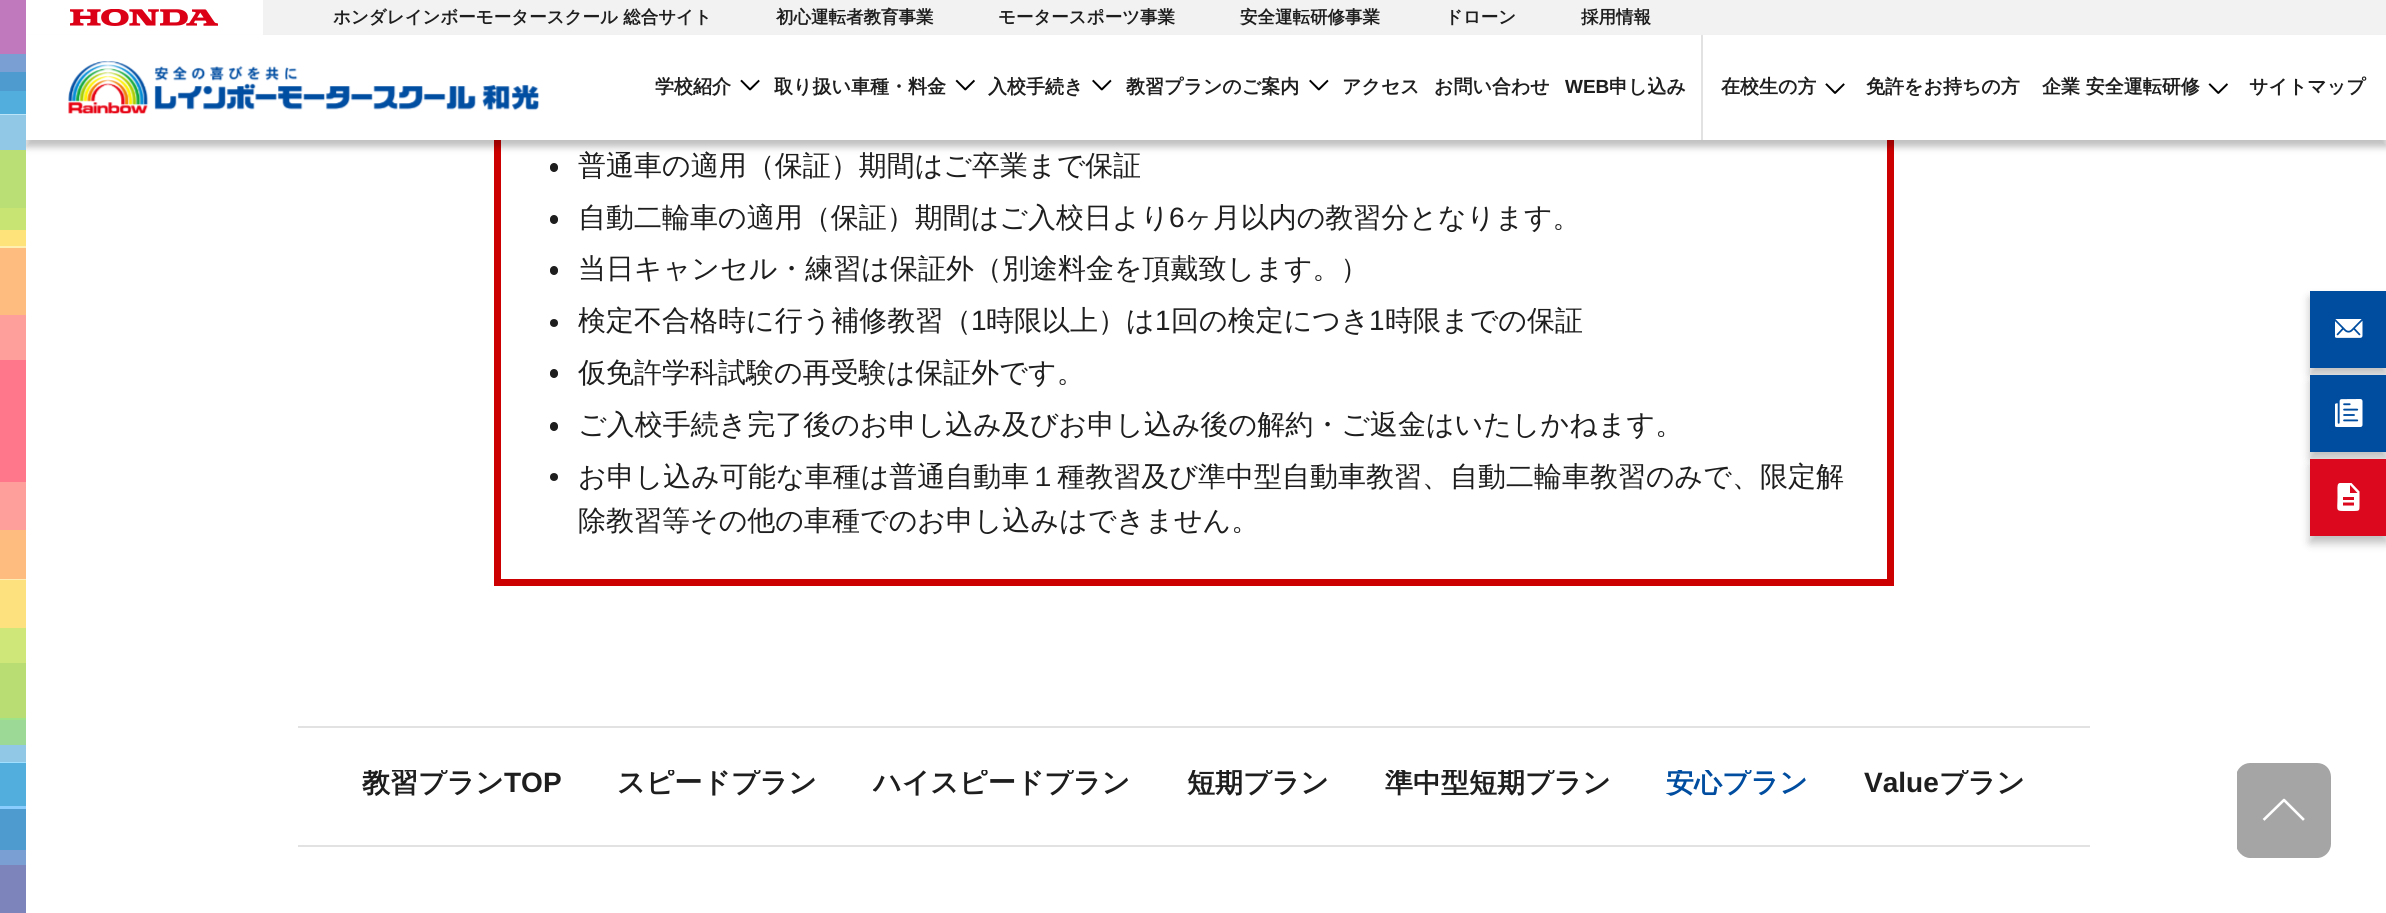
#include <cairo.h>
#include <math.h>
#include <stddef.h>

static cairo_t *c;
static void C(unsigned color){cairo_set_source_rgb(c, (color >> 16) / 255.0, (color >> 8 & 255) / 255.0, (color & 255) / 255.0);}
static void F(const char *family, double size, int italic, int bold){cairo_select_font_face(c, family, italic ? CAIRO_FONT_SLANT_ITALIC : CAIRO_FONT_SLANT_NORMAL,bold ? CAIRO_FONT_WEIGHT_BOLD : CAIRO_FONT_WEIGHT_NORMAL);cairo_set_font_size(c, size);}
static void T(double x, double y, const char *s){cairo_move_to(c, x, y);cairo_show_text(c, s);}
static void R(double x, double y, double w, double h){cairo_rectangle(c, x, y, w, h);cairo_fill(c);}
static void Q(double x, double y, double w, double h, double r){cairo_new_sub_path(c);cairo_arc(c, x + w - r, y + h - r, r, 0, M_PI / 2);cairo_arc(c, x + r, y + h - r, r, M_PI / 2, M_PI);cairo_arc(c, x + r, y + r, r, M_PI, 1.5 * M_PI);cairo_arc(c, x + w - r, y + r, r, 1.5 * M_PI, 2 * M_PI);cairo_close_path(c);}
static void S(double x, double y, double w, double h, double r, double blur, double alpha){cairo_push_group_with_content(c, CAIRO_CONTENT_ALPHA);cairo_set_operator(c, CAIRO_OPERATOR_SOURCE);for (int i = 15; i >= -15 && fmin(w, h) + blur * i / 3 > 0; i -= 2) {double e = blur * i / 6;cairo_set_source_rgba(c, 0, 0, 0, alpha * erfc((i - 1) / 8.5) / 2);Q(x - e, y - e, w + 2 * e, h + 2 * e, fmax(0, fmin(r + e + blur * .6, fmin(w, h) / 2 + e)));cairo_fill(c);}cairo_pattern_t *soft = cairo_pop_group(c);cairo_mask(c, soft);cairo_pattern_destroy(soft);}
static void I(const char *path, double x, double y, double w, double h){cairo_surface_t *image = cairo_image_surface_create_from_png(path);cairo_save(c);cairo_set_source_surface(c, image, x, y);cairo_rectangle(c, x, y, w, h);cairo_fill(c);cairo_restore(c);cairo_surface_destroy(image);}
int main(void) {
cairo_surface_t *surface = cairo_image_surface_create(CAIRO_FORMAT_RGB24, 2386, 913);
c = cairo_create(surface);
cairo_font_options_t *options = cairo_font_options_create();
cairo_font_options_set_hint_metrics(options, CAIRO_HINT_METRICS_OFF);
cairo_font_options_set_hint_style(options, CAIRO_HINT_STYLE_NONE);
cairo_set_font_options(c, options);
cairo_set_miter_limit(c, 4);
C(0xffffff);
cairo_paint(c);
cairo_rectangle(c,497.5,-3.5,1393,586);
C(0xcc0000);
cairo_set_line_width(c,7);
cairo_stroke(c);
C(0xf2f2f2);
R(263,0,2123,35);
C(0x000000);
S(26,42,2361,105,0,3.5,.25);
I("1.png",0,0,26,913);
I("2.png",70,9,148,17);
F("WenQuanYi Zen Hei",17.5,0,1);
C(0x1e1e1e);
T(333,23,"ホンダレインボーモータースクール 総合サイト");
T(776,23,"初心運転者教育事業");
T(998,23,"モータースポーツ事業");
T(1240,23,"安全運転研修事業");
T(1445,23,"ドローン");
T(1581,23,"採用情報");
C(0xffffff);
R(26,35,2360,105);
I("3.png",68,61,472,53);
F("WenQuanYi Zen Hei",19,0,1);
C(0x1e1e1e);
T(655,93,"学校紹介");
I("4.png",740,79,20,12);
T(774,93,"取り扱い車種・料金");
I("5.png",955,79,20,12);
T(988,93,"入校手続き");
I("6.png",1092,79,20,12);
T(1126,93,"教習プランのご案内");
I("6.png",1309,79,20,12);
T(1342,93,"アクセス");
T(1434,93,"お問い合わせ");
F("Liberation Sans",19,0,1);
T(1565,93,"WEB");
F("WenQuanYi Zen Hei",19,0,1);
T(1609,93,"申し込み");
C(0xe2e2e2);
R(1701,35,2,105);
C(0x1e1e1e);
T(1721,93,"在校生の方");
I("7.png",1825,83,20,11);
T(1866,93,"免許をお持ちの方");
T(2042,93,"企業 安全運転研修");
I("8.png",2208,83,20,11);
T(2249,93,"サイトマップ");
Q(550,163,8,9,4);
cairo_fill(c);
F("WenQuanYi Zen Hei Medium",28,0,0);
T(578,175,"普通車の適用（保証）期間はご卒業まで保証");
Q(550,215,8,9,4);
cairo_fill(c);
T(578,227,"自動二輪車の適用（保証）期間はご入校日より");
F("Liberation Sans",28,0,0);
T(1169,227,"6");
F("WenQuanYi Zen Hei Medium",28,0,0);
T(1184,227,"ヶ月以内の教習分となります。");
Q(550,266,8,9,4);
cairo_fill(c);
T(578,278,"当日キャンセル・練習は保証外（別途料金を頂戴致します。）");
cairo_new_path(c);
cairo_arc(c,554,323,4,0,2 * M_PI);
cairo_fill(c);
T(578,330,"検定不合格時に行う補修教習（");
F("Liberation Sans",28,0,0);
T(971,330,"1");
F("WenQuanYi Zen Hei Medium",28,0,0);
T(986,330,"時限以上）は");
F("Liberation Sans",28,0,0);
T(1155,330,"1");
F("WenQuanYi Zen Hei Medium",28,0,0);
T(1171,330,"回の検定につき");
F("Liberation Sans",28,0,0);
T(1369,330,"1");
F("WenQuanYi Zen Hei Medium",28,0,0);
T(1385,330,"時限までの保証");
Q(550,369,8,9,4);
cairo_fill(c);
T(578,382,"仮免許学科試験の再受験は保証外です。");
Q(550,422,8,9,4);
cairo_fill(c);
T(578,434,"ご入校手続き完了後のお申し込み及びお申し込み後の解約・ご返金はいたしかねます。");
cairo_new_path(c);
cairo_arc(c,554,477,4,0,2 * M_PI);
cairo_fill(c);
T(578,486,"お申し込み可能な車種は普通自動車１種教習及び準中型自動車教習、自動二輪車教習のみで、限定解");
T(578,530,"除教習等その他の車種でのお申し込みはできません。");
C(0xe2e2e2);
R(298,726,1792,2);
R(298,845,1792,2);
cairo_save(c);
cairo_rectangle(c,362,770,200,28);
cairo_clip(c);
F("WenQuanYi Zen Hei",28,0,1);
C(0x1e1e1e);
T(362,792,"教習プラン");
cairo_restore(c);
F("Liberation Sans",28,0,1);
C(0x1e1e1e);
T(504,792,"TOP");
cairo_save(c);
cairo_rectangle(c,618,770,199,28);
cairo_clip(c);
F("WenQuanYi Zen Hei",28,0,1);
T(617,792,"スピードプラン");
cairo_restore(c);
cairo_save(c);
cairo_rectangle(c,873,770,258,28);
cairo_clip(c);
F("WenQuanYi Zen Hei",28,0,1);
T(873,792,"ハイスピードプラン");
cairo_restore(c);
cairo_save(c);
cairo_rectangle(c,1187,770,141,28);
cairo_clip(c);
F("WenQuanYi Zen Hei",28,0,1);
T(1187,792,"短期プラン");
cairo_restore(c);
cairo_save(c);
cairo_rectangle(c,1384,770,226,28);
cairo_clip(c);
F("WenQuanYi Zen Hei",28,0,1);
T(1385,792,"準中型短期プラン");
cairo_restore(c);
cairo_save(c);
cairo_rectangle(c,1666,770,142,28);
cairo_clip(c);
F("WenQuanYi Zen Hei",28,0,1);
C(0x004da0);
T(1666,792,"安心プラン");
cairo_restore(c);
T(1864,792,"Value");
cairo_save(c);
cairo_rectangle(c,1864,770,161,28);
cairo_clip(c);
F("WenQuanYi Zen Hei",28,0,1);
T(1939,792,"プラン");
cairo_restore(c);
C(0x000000);
S(2310,298,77,77,0,4.5,.25);
C(0x004da0);
R(2310,291,76,77);
I("9.png",2335,319,28,19);
C(0x000000);
S(2310,382,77,77,0,4.5,.25);
C(0x004da0);
R(2310,375,76,77);
I("10.png",2335,399,28,28);
C(0x000000);
S(2310,466,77,77,0,4.5,.25);
C(0xdb081e);
R(2310,459,76,77);
cairo_save(c);
cairo_rectangle(c,2335,483,28,28);
cairo_clip(c);
C(0xffffff);
cairo_set_fill_rule(c,CAIRO_FILL_RULE_EVEN_ODD);
cairo_new_path(c);
cairo_move_to(c,2351.5,483);
cairo_curve_to(c,2335.5,483,2337.5,480,2337.5,497);
cairo_curve_to(c,2337.5,512,2334.5,511,2348.5,511);
cairo_line_to(c,2354,511);
cairo_curve_to(c,2359.5,511,2359.5,510.5,2359.5,505.5);
cairo_line_to(c,2359.5,491.5);
cairo_close_path(c);
cairo_move_to(c,2350,493);
cairo_line_to(c,2350,485);
cairo_line_to(c,2357.5,493);
cairo_close_path(c);
cairo_move_to(c,2354,500);
cairo_line_to(c,2343,500);
cairo_line_to(c,2343,497);
cairo_line_to(c,2354,497);
cairo_close_path(c);
cairo_move_to(c,2354,505.5);
cairo_line_to(c,2343,505.5);
cairo_line_to(c,2343,502.5);
cairo_line_to(c,2354,502.5);
cairo_close_path(c);
cairo_fill(c);
cairo_restore(c);
cairo_save(c);
cairo_rectangle(c,2237,763,94,95);
cairo_clip(c);
C(0xa5a5a5);
cairo_new_path(c);
cairo_move_to(c,2250,763);
cairo_line_to(c,2317,763);
cairo_curve_to(c,2325,763,2331,769,2331,777);
cairo_line_to(c,2331,844);
cairo_curve_to(c,2331,851,2325,858,2317,858);
cairo_line_to(c,2250,858);
cairo_curve_to(c,2243,858,2236,851,2236,844);
cairo_line_to(c,2236,777);
cairo_curve_to(c,2236,769,2243,763,2250,763);
cairo_close_path(c);
cairo_fill(c);
cairo_restore(c);
cairo_new_path(c);
cairo_move_to(c,2264.5,819);
cairo_line_to(c,2284,800);
cairo_line_to(c,2303,819);
C(0xffffff);
cairo_set_line_width(c,2.6);
cairo_set_line_cap(c,CAIRO_LINE_CAP_SQUARE);
cairo_set_line_join(c,CAIRO_LINE_JOIN_ROUND);
cairo_stroke(c);
cairo_surface_write_to_png(surface, "o.png");
cairo_font_options_destroy(options);
cairo_destroy(c);
cairo_surface_destroy(surface);
return 0;
}
